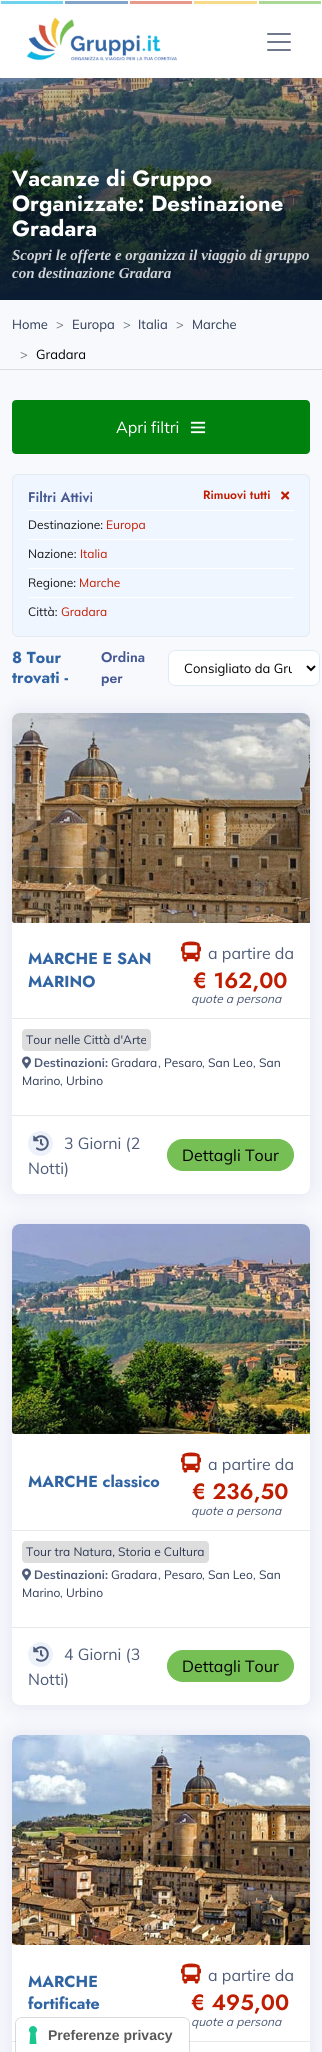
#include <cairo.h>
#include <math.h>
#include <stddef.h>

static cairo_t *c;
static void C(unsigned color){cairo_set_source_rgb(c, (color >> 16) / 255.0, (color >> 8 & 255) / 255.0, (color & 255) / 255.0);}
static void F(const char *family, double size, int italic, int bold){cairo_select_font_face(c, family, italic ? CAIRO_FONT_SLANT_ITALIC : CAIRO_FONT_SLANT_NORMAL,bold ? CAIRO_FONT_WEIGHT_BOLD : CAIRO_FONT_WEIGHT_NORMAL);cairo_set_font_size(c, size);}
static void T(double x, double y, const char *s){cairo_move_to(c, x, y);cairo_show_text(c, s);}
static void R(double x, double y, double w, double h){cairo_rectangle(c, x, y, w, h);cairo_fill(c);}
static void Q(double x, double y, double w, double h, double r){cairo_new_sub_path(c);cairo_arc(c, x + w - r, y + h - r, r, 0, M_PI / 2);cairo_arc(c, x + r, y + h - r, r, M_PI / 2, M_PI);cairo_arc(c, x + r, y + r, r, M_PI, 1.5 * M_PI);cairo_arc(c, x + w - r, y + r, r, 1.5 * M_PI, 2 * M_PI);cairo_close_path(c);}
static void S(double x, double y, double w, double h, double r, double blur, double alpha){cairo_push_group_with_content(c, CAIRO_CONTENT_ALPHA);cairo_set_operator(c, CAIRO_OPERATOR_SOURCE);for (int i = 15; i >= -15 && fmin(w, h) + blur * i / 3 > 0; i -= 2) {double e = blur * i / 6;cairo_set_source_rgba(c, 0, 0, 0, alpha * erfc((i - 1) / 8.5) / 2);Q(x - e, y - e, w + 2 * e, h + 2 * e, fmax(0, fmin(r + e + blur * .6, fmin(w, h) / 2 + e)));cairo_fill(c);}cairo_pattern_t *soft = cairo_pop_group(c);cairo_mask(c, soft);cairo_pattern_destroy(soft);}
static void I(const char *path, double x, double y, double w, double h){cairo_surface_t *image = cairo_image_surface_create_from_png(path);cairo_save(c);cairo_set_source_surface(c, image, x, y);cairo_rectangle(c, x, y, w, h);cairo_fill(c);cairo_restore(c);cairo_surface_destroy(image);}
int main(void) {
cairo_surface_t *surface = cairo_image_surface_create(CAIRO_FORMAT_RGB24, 322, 2052);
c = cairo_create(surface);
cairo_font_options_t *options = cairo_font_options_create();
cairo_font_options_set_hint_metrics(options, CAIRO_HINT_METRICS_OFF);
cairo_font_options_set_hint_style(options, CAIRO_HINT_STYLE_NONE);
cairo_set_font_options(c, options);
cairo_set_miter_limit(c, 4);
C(0xf7f9fc);
cairo_paint(c);
C(0xffffff);
R(0,5,322,73);
C(0x70d3ee);
cairo_rectangle(c,.5,.5,63,4);
cairo_fill_preserve(c);
C(0xffffff);
cairo_set_line_width(c,1);
cairo_stroke(c);
C(0x84a3c8);
cairo_rectangle(c,64.5,.5,64,4);
cairo_fill_preserve(c);
C(0xffffff);
cairo_stroke(c);
C(0xe79a8b);
cairo_rectangle(c,129.5,.5,63,4);
cairo_fill_preserve(c);
C(0xffffff);
cairo_stroke(c);
C(0xf6dc88);
cairo_rectangle(c,193.5,.5,64,4);
cairo_fill_preserve(c);
C(0xffffff);
cairo_stroke(c);
C(0xacd897);
cairo_rectangle(c,258.5,.5,63,4);
cairo_fill_preserve(c);
C(0xffffff);
cairo_stroke(c);
I("1.png",27,17,150,44);
C(0x70798b);
Q(267,49,24,2,1);
cairo_fill(c);
Q(267,41,24,2,1);
cairo_fill(c);
Q(267,33,24,2,1);
cairo_fill(c);
I("2.png",0,78,322,222);
F("Jost",22,0,1);
C(0xffffff);
T(12,186,"Vacanze di Gruppo");
T(12,211,"Organizzate: Destinazione");
T(12,236,"Gradara");
F("Liberation Serif",15,1,1);
C(0xd1d4d6);
T(12,260,"Scopri le offerte e organizza il viaggio di gruppo");
T(12,278,"con destinazione Gradara");
C(0xdddddd);
R(0,369,322,1);
F("Muli",13,0,0);
C(0x2d3954);
T(12,329,"Home");
C(0x6c757d);
T(56,329,">");
C(0x2d3954);
T(72,329,"Europa");
C(0x6c757d);
T(123,329,">");
C(0x2d3954);
T(138,329,"Italia");
C(0x6c757d);
T(176,329,">");
C(0x2d3954);
T(192,329,"Marche");
C(0x6c757d);
T(20,359,">");
C(0x000000);
T(36,359,"Gradara");
C(0x00820f);
Q(13,401,296,52,3);
cairo_fill_preserve(c);
cairo_set_line_width(c,2);
cairo_stroke(c);
F("Muli",16,0,0);
C(0xffffff);
T(116,433,"Apri filtri");
I("3.png",190,421,16,13);
C(0xf0f6ff);
Q(12.5,474.5,297,162,5.5);
cairo_fill_preserve(c);
C(0xe6eaf1);
cairo_set_line_width(c,1);
cairo_stroke(c);
F("Jost SemiBold",14,0,0);
C(0x455892);
T(28,502,"Filtri Attivi");
F("Jost SemiBold",12,0,0);
C(0xbf1c00);
T(203,499,"Rimuovi tutti");
I("4.png",281,491,9,9);
C(0xffffff);
R(28,510,266,1);
F("Muli",12,0,0);
C(0x171717);
T(28,529,"Destinazione:");
C(0xbf1c00);
T(106,529,"Europa");
C(0xffffff);
R(28,539,266,1);
C(0x171717);
T(28,558,"Nazione:");
C(0xbf1c00);
T(80,558,"Italia");
C(0xffffff);
R(28,568,266,1);
C(0x171717);
T(28,587,"Regione:");
C(0xbf1c00);
T(79,587,"Marche");
C(0xffffff);
R(28,597,266,1);
C(0x171717);
T(28,616,"Città:");
C(0xbf1c00);
T(61,616,"Gradara");
F("Jost",16,0,1);
C(0x3064a3);
T(12,663,"8 Tour");
T(12,683,"trovati -");
F("Jost SemiBold",14,0,0);
C(0x455892);
T(101,662,"Ordina");
T(101,683,"per");
C(0xffffff);
Q(168.5,650.5,151,35,6.5);
cairo_fill_preserve(c);
C(0xe0ecf5);
cairo_stroke(c);
cairo_new_path(c);
cairo_move_to(c,307,666);
cairo_line_to(c,311,670);
cairo_line_to(c,315,666);
C(0x000000);
cairo_set_line_width(c,2);
cairo_stroke(c);
cairo_save(c);
cairo_rectangle(c,184,659,108,18);
cairo_clip(c);
F("Muli",13,0,0);
T(184,673,"Consigliato da Gru");
cairo_restore(c);
C(0x3e1c83);
S(12,713,298,481,8,10,.1);
C(0xffffff);
Q(12,713,298,481,8);
cairo_fill(c);
I("5.png",12,713,298,210);
C(0xe5e9ec);
R(12,1018,298,1);
F("Jost",16,0,1);
C(0x3064a3);
T(28,964,"MARCHE E SAN");
T(28,987,"MARINO");
I("6.png",181,941,20,21);
F("Muli",16,0,0);
C(0x4e5c79);
T(208,959,"a partire da");
F("Jost SemiBold",22,0,0);
C(0xbf1c00);
T(193,988,"€ 162,00");
F("Muli",12,1,0);
C(0x4e5c79);
T(191,1003,"quote a persona");
C(0xdddddd);
Q(22,1029,129,22,4);
cairo_fill(c);
F("Muli",12,0,0);
C(0x2d3954);
T(26,1044,"Tour nelle Città d'Arte");
I("7.png",22,1056,9,13);
F("Muli",12,0,1);
C(0x4e5c79);
T(34,1067,"Destinazioni:");
F("Muli",12,0,0);
C(0x2d3954);
T(111,1067,"Gradara");
C(0x4e5c79);
T(158,1067,",");
C(0x2d3954);
T(164,1067,"Pesaro");
C(0x4e5c79);
T(202,1067,",");
C(0x2d3954);
T(208,1067,"San Leo");
C(0x4e5c79);
T(253,1067,",");
C(0x2d3954);
T(259,1067,"San");
T(22,1085,"Marino");
C(0x4e5c79);
T(60,1085,",");
C(0x2d3954);
T(66,1085,"Urbino");
C(0xe5e9ec);
R(12,1115,298,1);
C(0xedf1f9);
cairo_new_path(c);
cairo_arc(c,40.5,1143.5,12.5,0,2 * M_PI);
cairo_fill(c);
I("8.png",33,1135,16,16);
F("Muli",16,0,0);
C(0x4e5c79);
T(64,1149,"3 Giorni (2");
T(28,1174,"Notti)");
C(0x76bf54);
Q(167.5,1139.5,126,31,15.5);
cairo_fill_preserve(c);
cairo_set_line_width(c,1);
cairo_stroke(c);
C(0x000000);
T(182,1161,"Dettagli Tour");
C(0x3e1c83);
S(12,1224,298,481,8,10,.1);
C(0xffffff);
Q(12,1224,298,481,8);
cairo_fill(c);
I("9.png",12,1224,298,210);
C(0xe5e9ec);
R(12,1530,298,1);
F("Jost",16,0,1);
C(0x3064a3);
T(28,1487,"MARCHE classico");
I("6.png",181,1452,20,21);
F("Muli",16,0,0);
C(0x4e5c79);
T(208,1470,"a partire da");
F("Jost SemiBold",22,0,0);
C(0xbf1c00);
T(192,1499,"€ 236,50");
F("Muli",12,1,0);
C(0x4e5c79);
T(191,1515,"quote a persona");
C(0xdddddd);
Q(22,1541,187,22,4);
cairo_fill(c);
F("Muli",12,0,0);
C(0x2d3954);
T(26,1556,"Tour tra Natura, Storia e Cultura");
I("7.png",22,1568,9,13);
F("Muli",12,0,1);
C(0x4e5c79);
T(34,1579,"Destinazioni:");
F("Muli",12,0,0);
C(0x2d3954);
T(111,1579,"Gradara");
C(0x4e5c79);
T(158,1579,",");
C(0x2d3954);
T(164,1579,"Pesaro");
C(0x4e5c79);
T(202,1579,",");
C(0x2d3954);
T(208,1579,"San Leo");
C(0x4e5c79);
T(253,1579,",");
C(0x2d3954);
T(259,1579,"San");
T(22,1597,"Marino");
C(0x4e5c79);
T(60,1597,",");
C(0x2d3954);
T(66,1597,"Urbino");
C(0xe5e9ec);
R(12,1627,298,1);
C(0xedf1f9);
cairo_new_path(c);
cairo_arc(c,40.5,1654.5,12.5,0,2 * M_PI);
cairo_fill(c);
I("8.png",33,1646,16,16);
F("Muli",16,0,0);
C(0x4e5c79);
T(64,1660,"4 Giorni (3");
T(28,1685,"Notti)");
C(0x76bf54);
Q(167.5,1650.5,126,31,15.5);
cairo_fill_preserve(c);
cairo_stroke(c);
C(0x000000);
T(182,1672,"Dettagli Tour");
C(0x3e1c83);
S(12,1735,298,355,8,10,.1);
C(0xffffff);
Q(12,1735,298,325,8);
cairo_fill(c);
I("10.png",12,1735,298,210);
C(0xe5e9ec);
R(12,2041,298,1);
F("Jost",16,0,1);
C(0x3064a3);
T(28,1987,"MARCHE");
T(28,2009,"fortificate");
I("6.png",181,1963,20,21);
F("Muli",16,0,0);
C(0x4e5c79);
T(208,1981,"a partire da");
F("Jost SemiBold",22,0,0);
C(0xbf1c00);
T(191,2010,"€ 495,00");
F("Muli",12,1,0);
C(0x4e5c79);
T(191,2026,"quote a persona");
cairo_new_path(c);
cairo_move_to(c,22,2017.5);
cairo_line_to(c,183,2017.5);
cairo_curve_to(c,186.5,2017.5,189.5,2020.5,189.5,2024);
cairo_line_to(c,189.5,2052.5);
cairo_line_to(c,15.5,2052.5);
cairo_line_to(c,15.5,2024);
cairo_curve_to(c,15.5,2020.5,18.5,2017.5,22,2017.5);
cairo_close_path(c);
cairo_set_source_rgba(c,0,0,0,0.15);
cairo_stroke(c);
C(0xffffff);
cairo_new_path(c);
cairo_move_to(c,22,2018);
cairo_line_to(c,183,2018);
cairo_curve_to(c,186.5,2018,189,2020.5,189,2024);
cairo_line_to(c,189,2052);
cairo_line_to(c,16,2052);
cairo_line_to(c,16,2024);
cairo_curve_to(c,16,2020.5,18.5,2018,22,2018);
cairo_close_path(c);
cairo_fill(c);
I("11.png",29,2026,8,18);
F("Liberation Sans",14,0,1);
C(0x595959);
T(48,2040,"Preferenze privacy");
cairo_surface_write_to_png(surface, "o.png");
cairo_font_options_destroy(options);
cairo_destroy(c);
cairo_surface_destroy(surface);
return 0;
}
